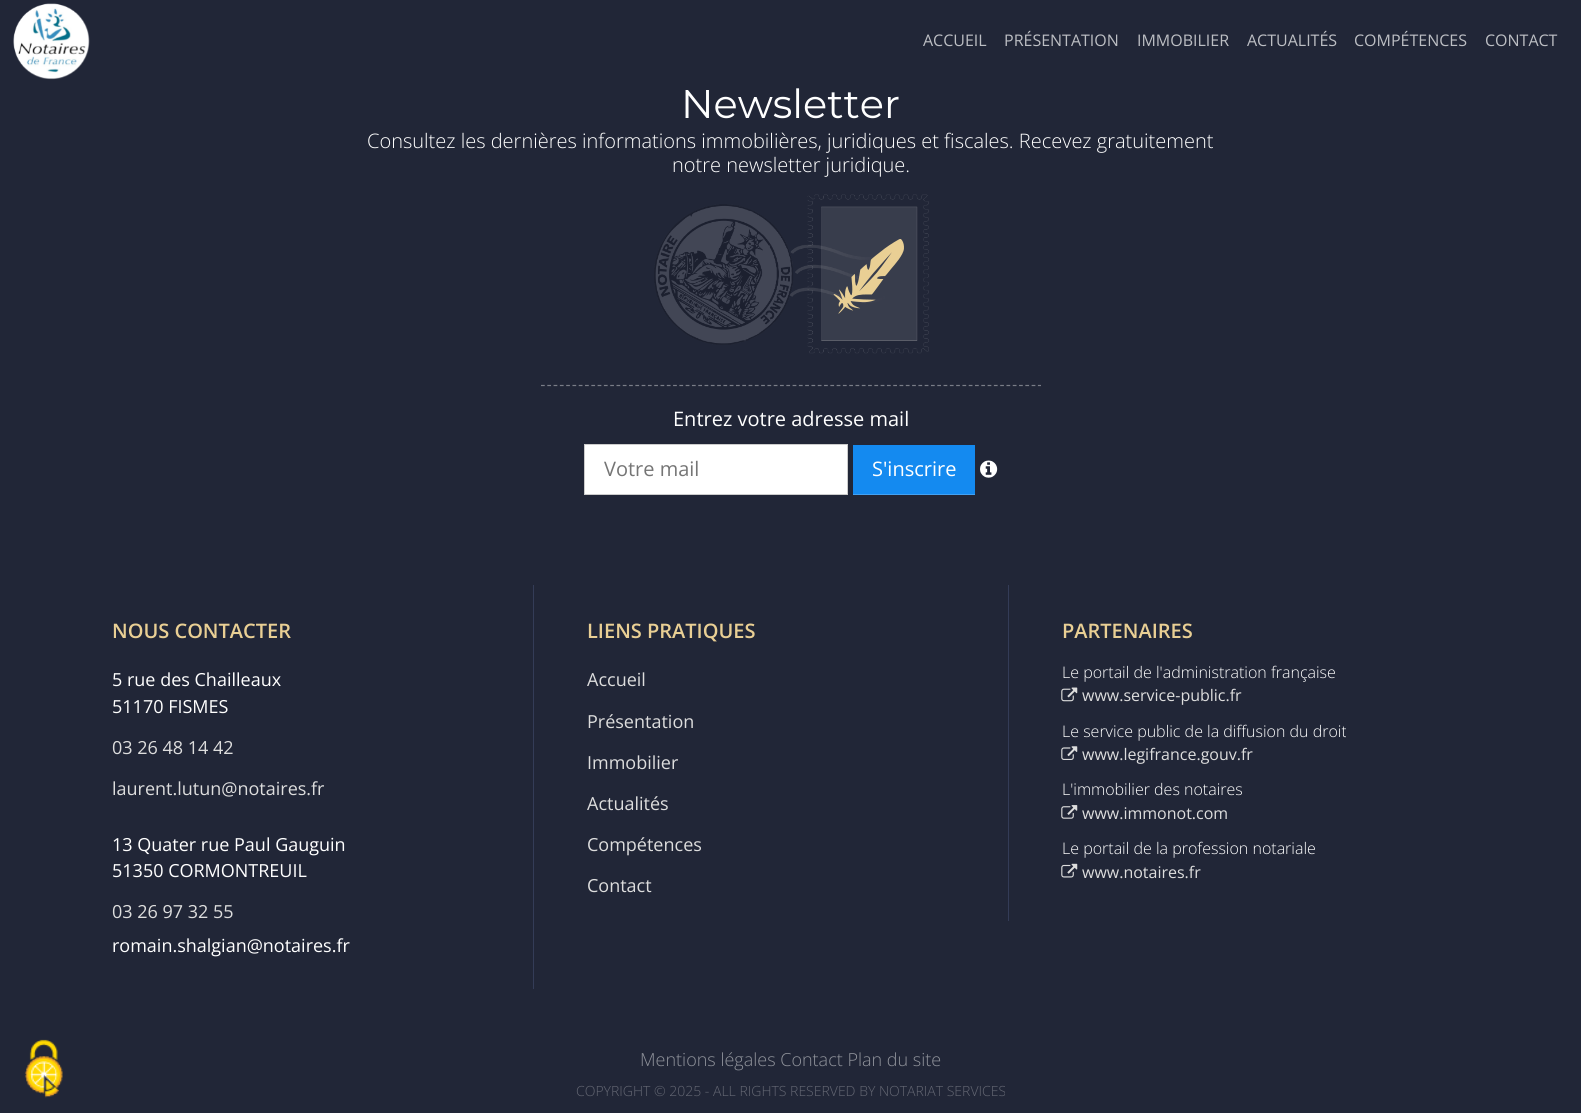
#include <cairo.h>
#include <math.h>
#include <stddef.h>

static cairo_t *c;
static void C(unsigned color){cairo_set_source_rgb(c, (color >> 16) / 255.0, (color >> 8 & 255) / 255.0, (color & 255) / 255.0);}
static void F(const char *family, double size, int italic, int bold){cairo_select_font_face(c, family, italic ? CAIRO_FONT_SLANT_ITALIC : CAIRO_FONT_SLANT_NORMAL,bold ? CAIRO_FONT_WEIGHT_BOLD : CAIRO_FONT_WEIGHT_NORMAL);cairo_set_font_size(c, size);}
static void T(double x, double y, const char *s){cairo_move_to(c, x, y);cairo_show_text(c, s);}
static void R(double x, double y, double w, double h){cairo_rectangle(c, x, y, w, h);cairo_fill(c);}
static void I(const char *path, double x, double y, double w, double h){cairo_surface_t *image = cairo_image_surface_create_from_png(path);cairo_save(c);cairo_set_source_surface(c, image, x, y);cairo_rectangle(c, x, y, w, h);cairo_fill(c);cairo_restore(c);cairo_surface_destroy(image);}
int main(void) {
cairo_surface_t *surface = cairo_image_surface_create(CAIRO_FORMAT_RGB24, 1581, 1113);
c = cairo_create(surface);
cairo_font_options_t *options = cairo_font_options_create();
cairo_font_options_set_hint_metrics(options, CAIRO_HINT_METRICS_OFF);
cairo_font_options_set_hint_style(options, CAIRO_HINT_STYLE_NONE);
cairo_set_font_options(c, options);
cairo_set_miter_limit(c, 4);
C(0x212637);
cairo_paint(c);
I("1.png",24,1039,39,59);
I("2.png",13,3,77,77);
F("Open Sans",16,0,0);
C(0xbcbec3);
T(923,46,"ACCUEIL");
T(1004,46,"PRÉSENTATION");
T(1137,46,"IMMOBILIER");
T(1247,46,"ACTUALITÉS");
T(1354,46,"COMPÉTENCES");
T(1485,46,"CONTACT");
F("Montserrat Thin",40,0,0);
C(0xffffff);
T(681,118,"Newsletter");
F("Open Sans Light",20,0,0);
T(367,148,"Consultez les dernières informations immobilières, juridiques et fiscales. Recevez gratuitement");
T(672,172,"notre newsletter juridique.");
I("3.png",654,194,275,160);
I("4.png",833,239,71,75);
cairo_new_path(c);
cairo_move_to(c,541,385.5);
cairo_line_to(c,1041,385.5);
C(0x7a7d87);
cairo_set_line_width(c,1.2);
cairo_set_dash(c,(double[]){3.75,2.54},2,0);
cairo_stroke(c);
F("Open Sans",20,0,0);
C(0xffffff);
T(673,426,"Entrez votre adresse mail");
cairo_rectangle(c,584.5,444.5,263,50);
cairo_fill_preserve(c);
C(0xcccccc);
cairo_set_line_width(c,1);
cairo_set_dash(c,NULL,0,0);
cairo_stroke(c);
C(0x757575);
T(604,476,"Votre mail");
C(0x148af0);
R(853,445,122,49);
C(0x43a1f3);
R(853,494,122,1);
C(0xffffff);
T(872,476,"S'inscrire");
I("5.png",980,460,18,18);
C(0x343c57);
R(533,585,1,404);
F("Open Sans SemiBold",20,0,0);
C(0xe9cf94);
T(112,638,"NOUS CONTACTER");
F("Open Sans",18,0,0);
C(0xffffff);
T(112,686,"5 rue des Chailleaux");
T(112,713,"51170 FISMES");
C(0xdddddd);
T(112,754,"03 26 48 14 42");
T(112,795,"laurent.lutun@notaires.fr");
C(0xffffff);
T(112,851,"13 Quater rue Paul Gauguin");
T(112,877,"51350 CORMONTREUIL");
C(0xdddddd);
T(112,918,"03 26 97 32 55");
C(0xffffff);
T(112,952,"romain.shalgian@notaires.fr");
C(0x343c57);
R(1008,585,1,336);
F("Open Sans SemiBold",20,0,0);
C(0xe9cf94);
T(587,638,"LIENS PRATIQUES");
F("Open Sans",18,0,0);
C(0xdddddd);
T(587,686,"Accueil");
T(587,728,"Présentation");
T(587,769,"Immobilier");
T(587,810,"Actualités");
T(587,851,"Compétences");
T(587,892,"Contact");
F("Open Sans SemiBold",20,0,0);
C(0xe9cf94);
T(1062,638,"PARTENAIRES");
F("Open Sans Light",16,0,0);
C(0xffffff);
T(1062,678,"Le portail de l'administration française");
I("6.png",1061,687,17,15);
F("Open Sans",16,0,0);
C(0xdddddd);
T(1082,701,"www.service-public.fr");
F("Open Sans Light",16,0,0);
C(0xffffff);
T(1062,737,"Le service public de la diffusion du droit");
I("7.png",1061,746,17,14);
F("Open Sans",16,0,0);
C(0xdddddd);
T(1082,760,"www.legifrance.gouv.fr");
F("Open Sans Light",16,0,0);
C(0xffffff);
T(1062,795,"L'immobilier des notaires");
I("8.png",1061,805,17,14);
F("Open Sans",16,0,0);
C(0xdddddd);
T(1082,819,"www.immonot.com");
F("Open Sans Light",16,0,0);
C(0xffffff);
T(1062,854,"Le portail de la profession notariale");
I("9.png",1061,863,17,15);
F("Open Sans",16,0,0);
C(0xdddddd);
T(1082,878,"www.notaires.fr");
F("Open Sans Light",18,0,0);
C(0x90939b);
T(640,1066,"Mentions légales Contact Plan du site");
F("Open Sans Light",14,0,0);
C(0x646773);
T(576,1096,"COPYRIGHT © 2025 - ALL RIGHTS RESERVED BY NOTARIAT SERVICES");
cairo_surface_write_to_png(surface, "o.png");
cairo_font_options_destroy(options);
cairo_destroy(c);
cairo_surface_destroy(surface);
return 0;
}
